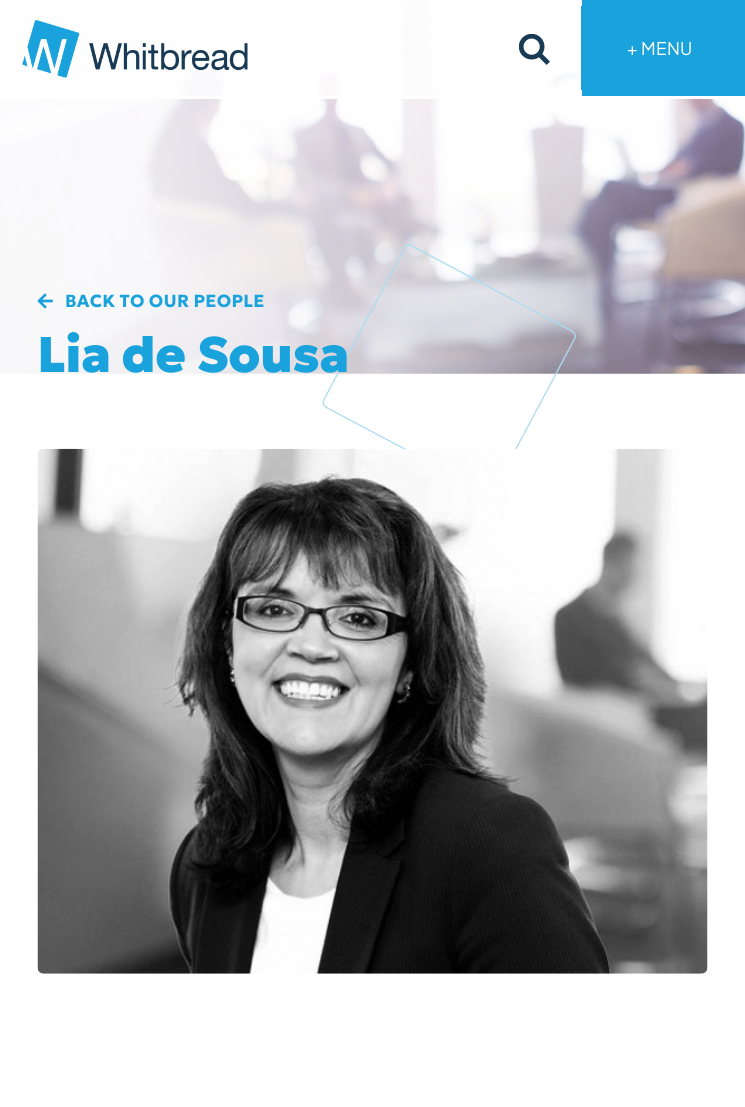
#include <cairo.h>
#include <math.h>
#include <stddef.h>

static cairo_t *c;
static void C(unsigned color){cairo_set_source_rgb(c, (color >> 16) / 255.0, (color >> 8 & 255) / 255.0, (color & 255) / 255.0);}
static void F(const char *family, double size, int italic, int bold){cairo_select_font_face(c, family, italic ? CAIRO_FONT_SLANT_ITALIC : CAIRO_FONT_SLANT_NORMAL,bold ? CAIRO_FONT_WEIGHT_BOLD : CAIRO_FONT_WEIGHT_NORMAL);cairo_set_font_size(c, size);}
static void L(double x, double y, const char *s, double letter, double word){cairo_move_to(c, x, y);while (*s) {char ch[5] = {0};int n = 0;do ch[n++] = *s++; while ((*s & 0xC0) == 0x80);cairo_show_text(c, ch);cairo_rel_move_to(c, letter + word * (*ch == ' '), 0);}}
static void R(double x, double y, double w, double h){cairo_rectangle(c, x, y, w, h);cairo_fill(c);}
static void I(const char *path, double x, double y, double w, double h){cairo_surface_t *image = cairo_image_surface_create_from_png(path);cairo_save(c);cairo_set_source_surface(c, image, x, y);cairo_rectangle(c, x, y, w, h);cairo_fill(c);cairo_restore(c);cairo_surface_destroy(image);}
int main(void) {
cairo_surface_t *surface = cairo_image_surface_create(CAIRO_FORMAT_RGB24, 745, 1107);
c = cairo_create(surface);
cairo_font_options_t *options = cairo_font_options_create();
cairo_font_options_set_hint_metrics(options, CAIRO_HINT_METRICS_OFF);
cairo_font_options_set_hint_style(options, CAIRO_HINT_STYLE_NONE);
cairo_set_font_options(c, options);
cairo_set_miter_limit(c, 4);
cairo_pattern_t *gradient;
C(0xffffff);
cairo_paint(c);
I("3.png",0,0,745,374);
gradient = cairo_pattern_create_linear(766,117,-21,256);
cairo_pattern_add_color_stop_rgba(gradient,.31,1,1,1,0);
cairo_pattern_add_color_stop_rgba(gradient,1,1,1,1,.79);
cairo_set_source(c,gradient);
cairo_pattern_destroy(gradient);
R(0,0,544,374);
cairo_set_source_rgba(c,1,1,1,0.82);
R(0,0,579,96);
C(0xffffff);
R(0,96,718,3);
I("1.png",22,20,226,58);
I("2.png",519,34,31,31);
C(0x19a2dc);
R(582,0,163,96);
C(0xffffff);
R(579,69,3,15);
C(0x19a2dc);
R(581,6,1,84);
F("Plus Jakarta Sans",17.5,0,0);
C(0xffffff);
L(627,55,"+ MENU",.25,0);
I("4.png",37,293,16,16);
F("Geologica",17.5,0,1);
C(0x19a2dc);
L(65,307,"BACK TO OUR PEOPLE",.25,0);
cairo_new_path(c);
cairo_move_to(c,412,246);
cairo_line_to(c,572,331);
cairo_curve_to(c,574.5,332.5,576,336,574.5,339);
cairo_line_to(c,494,490);
cairo_curve_to(c,492.5,493,489,494,486.5,492.5);
cairo_line_to(c,326.5,407.5);
cairo_curve_to(c,323.5,406,322.5,402.5,324,399.5);
cairo_line_to(c,404.5,248.5);
cairo_curve_to(c,406,245.5,409,244.5,412,246);
cairo_close_path(c);
C(0xabdcf0);
cairo_set_line_width(c,1.3);
cairo_stroke(c);
F("Geologica Black",50,0,0);
C(0x19a2dc);
L(37,372,"Lia de Sousa",-.25,0);
I("5.png",37,448,671,526);
cairo_surface_write_to_png(surface, "o.png");
cairo_font_options_destroy(options);
cairo_destroy(c);
cairo_surface_destroy(surface);
return 0;
}
